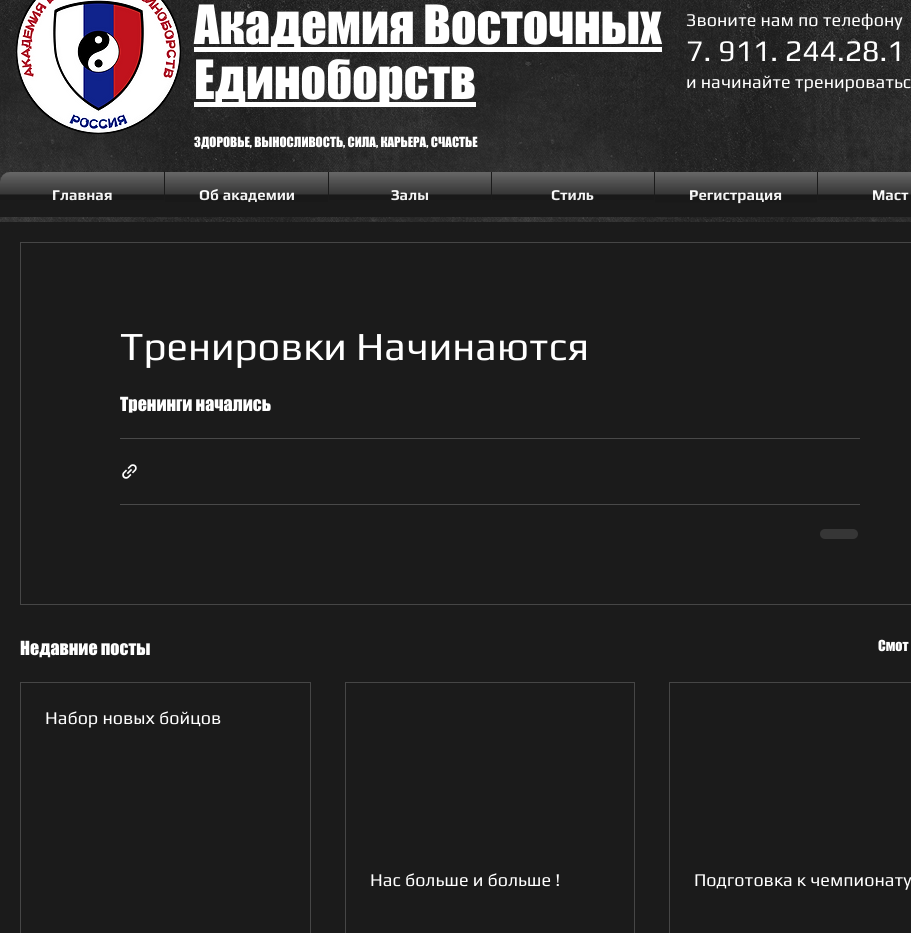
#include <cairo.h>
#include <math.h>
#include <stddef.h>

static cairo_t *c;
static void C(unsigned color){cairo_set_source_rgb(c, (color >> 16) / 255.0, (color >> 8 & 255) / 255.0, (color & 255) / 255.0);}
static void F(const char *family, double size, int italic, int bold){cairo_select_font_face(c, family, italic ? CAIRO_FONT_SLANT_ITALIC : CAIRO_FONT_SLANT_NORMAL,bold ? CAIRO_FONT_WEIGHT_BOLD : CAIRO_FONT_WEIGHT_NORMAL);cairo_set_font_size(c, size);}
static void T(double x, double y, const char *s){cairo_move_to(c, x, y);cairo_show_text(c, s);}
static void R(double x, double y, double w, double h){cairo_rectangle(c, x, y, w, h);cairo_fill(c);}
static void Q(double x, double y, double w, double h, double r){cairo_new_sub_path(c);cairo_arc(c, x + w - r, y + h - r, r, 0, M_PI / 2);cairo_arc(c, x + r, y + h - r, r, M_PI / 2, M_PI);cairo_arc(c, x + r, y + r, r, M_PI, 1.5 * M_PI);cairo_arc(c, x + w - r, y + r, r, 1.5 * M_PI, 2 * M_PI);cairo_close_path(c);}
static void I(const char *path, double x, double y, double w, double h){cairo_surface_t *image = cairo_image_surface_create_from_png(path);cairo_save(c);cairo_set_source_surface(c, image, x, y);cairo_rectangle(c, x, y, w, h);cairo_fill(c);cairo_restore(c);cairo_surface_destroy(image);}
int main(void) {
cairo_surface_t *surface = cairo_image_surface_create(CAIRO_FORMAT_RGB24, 911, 933);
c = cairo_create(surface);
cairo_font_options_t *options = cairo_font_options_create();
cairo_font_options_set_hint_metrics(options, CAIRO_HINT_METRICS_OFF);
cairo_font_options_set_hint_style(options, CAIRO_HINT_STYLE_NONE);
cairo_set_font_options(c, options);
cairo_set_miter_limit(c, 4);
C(0x1b1b1b);
cairo_paint(c);
I("1.png",0,0,911,222);
I("2.png",16,0,165,134);
C(0xffffff);
R(194,47,468,5);
F("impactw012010",50,0,0);
T(194,44,"Академия Восточных");
R(194,102,282,5);
T(194,99,"Единоборств");
F("Play",18,0,0);
T(686,26,"Звоните нам по телефону");
F("Play",30,0,0);
T(686,61,"7. 911. 244.28.1");
F("Play",18,0,0);
T(686,88,"и начинайте тренироватьс");
F("impactw012010",13,0,0);
T(194,147,"ЗДОРОВЬЕ, ВЫНОСЛИВОСТЬ, СИЛА, КАРЬЕРА, СЧАСТЬЕ");
I("3.png",0,172,10,10);
C(0x1b1b1b);
cairo_new_path(c);
cairo_move_to(c,10,172);
cairo_line_to(c,164,172);
cairo_line_to(c,164,217);
cairo_line_to(c,0,217);
cairo_line_to(c,0,182);
cairo_curve_to(c,0,176.5,4.5,172,10,172);
cairo_close_path(c);
cairo_fill(c);
F("Play",15,0,1);
C(0xffffff);
T(52,200,"Главная");
I("4.png",0,172,164,28);
C(0x1b1b1b);
R(164,172,747,45);
C(0xffffff);
T(199,200,"Об академии");
I("5.png",165,172,163,30);
T(391,200,"Залы");
I("6.png",329,172,162,28);
T(551,200,"Стиль");
I("7.png",492,172,162,28);
T(689,200,"Регистрация");
I("8.png",655,172,162,31);
T(872,200,"Маст");
I("9.png",818,172,93,28);
cairo_rectangle(c,20.5,242.5,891,362);
C(0x464646);
cairo_set_line_width(c,1);
cairo_stroke(c);
F("Play",40,0,0);
C(0xffffff);
T(120,360,"Тренировки Начинаются");
F("impactw012010",18,0,0);
T(120,411,"Тренинги начались");
C(0x494949);
R(120,438,740,1);
I("10.png",122,464,15,15);
R(120,504,740,1);
C(0x363636);
Q(820,529,38,10,5);
cairo_fill(c);
C(0xffffff);
T(20,655,"Недавние посты");
F("impactw012010",14,0,0);
T(878,651,"Смот");
cairo_rectangle(c,20.5,682.5,290,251);
C(0x464646);
cairo_stroke(c);
F("Play",18,0,0);
C(0xffffff);
T(45,724,"Набор новых бойцов");
cairo_rectangle(c,345.5,682.5,289,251);
C(0x464646);
cairo_stroke(c);
C(0xffffff);
T(370,886,"Нас больше и больше !");
cairo_rectangle(c,669.5,682.5,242,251);
C(0x464646);
cairo_stroke(c);
C(0xffffff);
T(694,886,"Подготовка к чемпионату");
cairo_surface_write_to_png(surface, "o.png");
cairo_font_options_destroy(options);
cairo_destroy(c);
cairo_surface_destroy(surface);
return 0;
}
